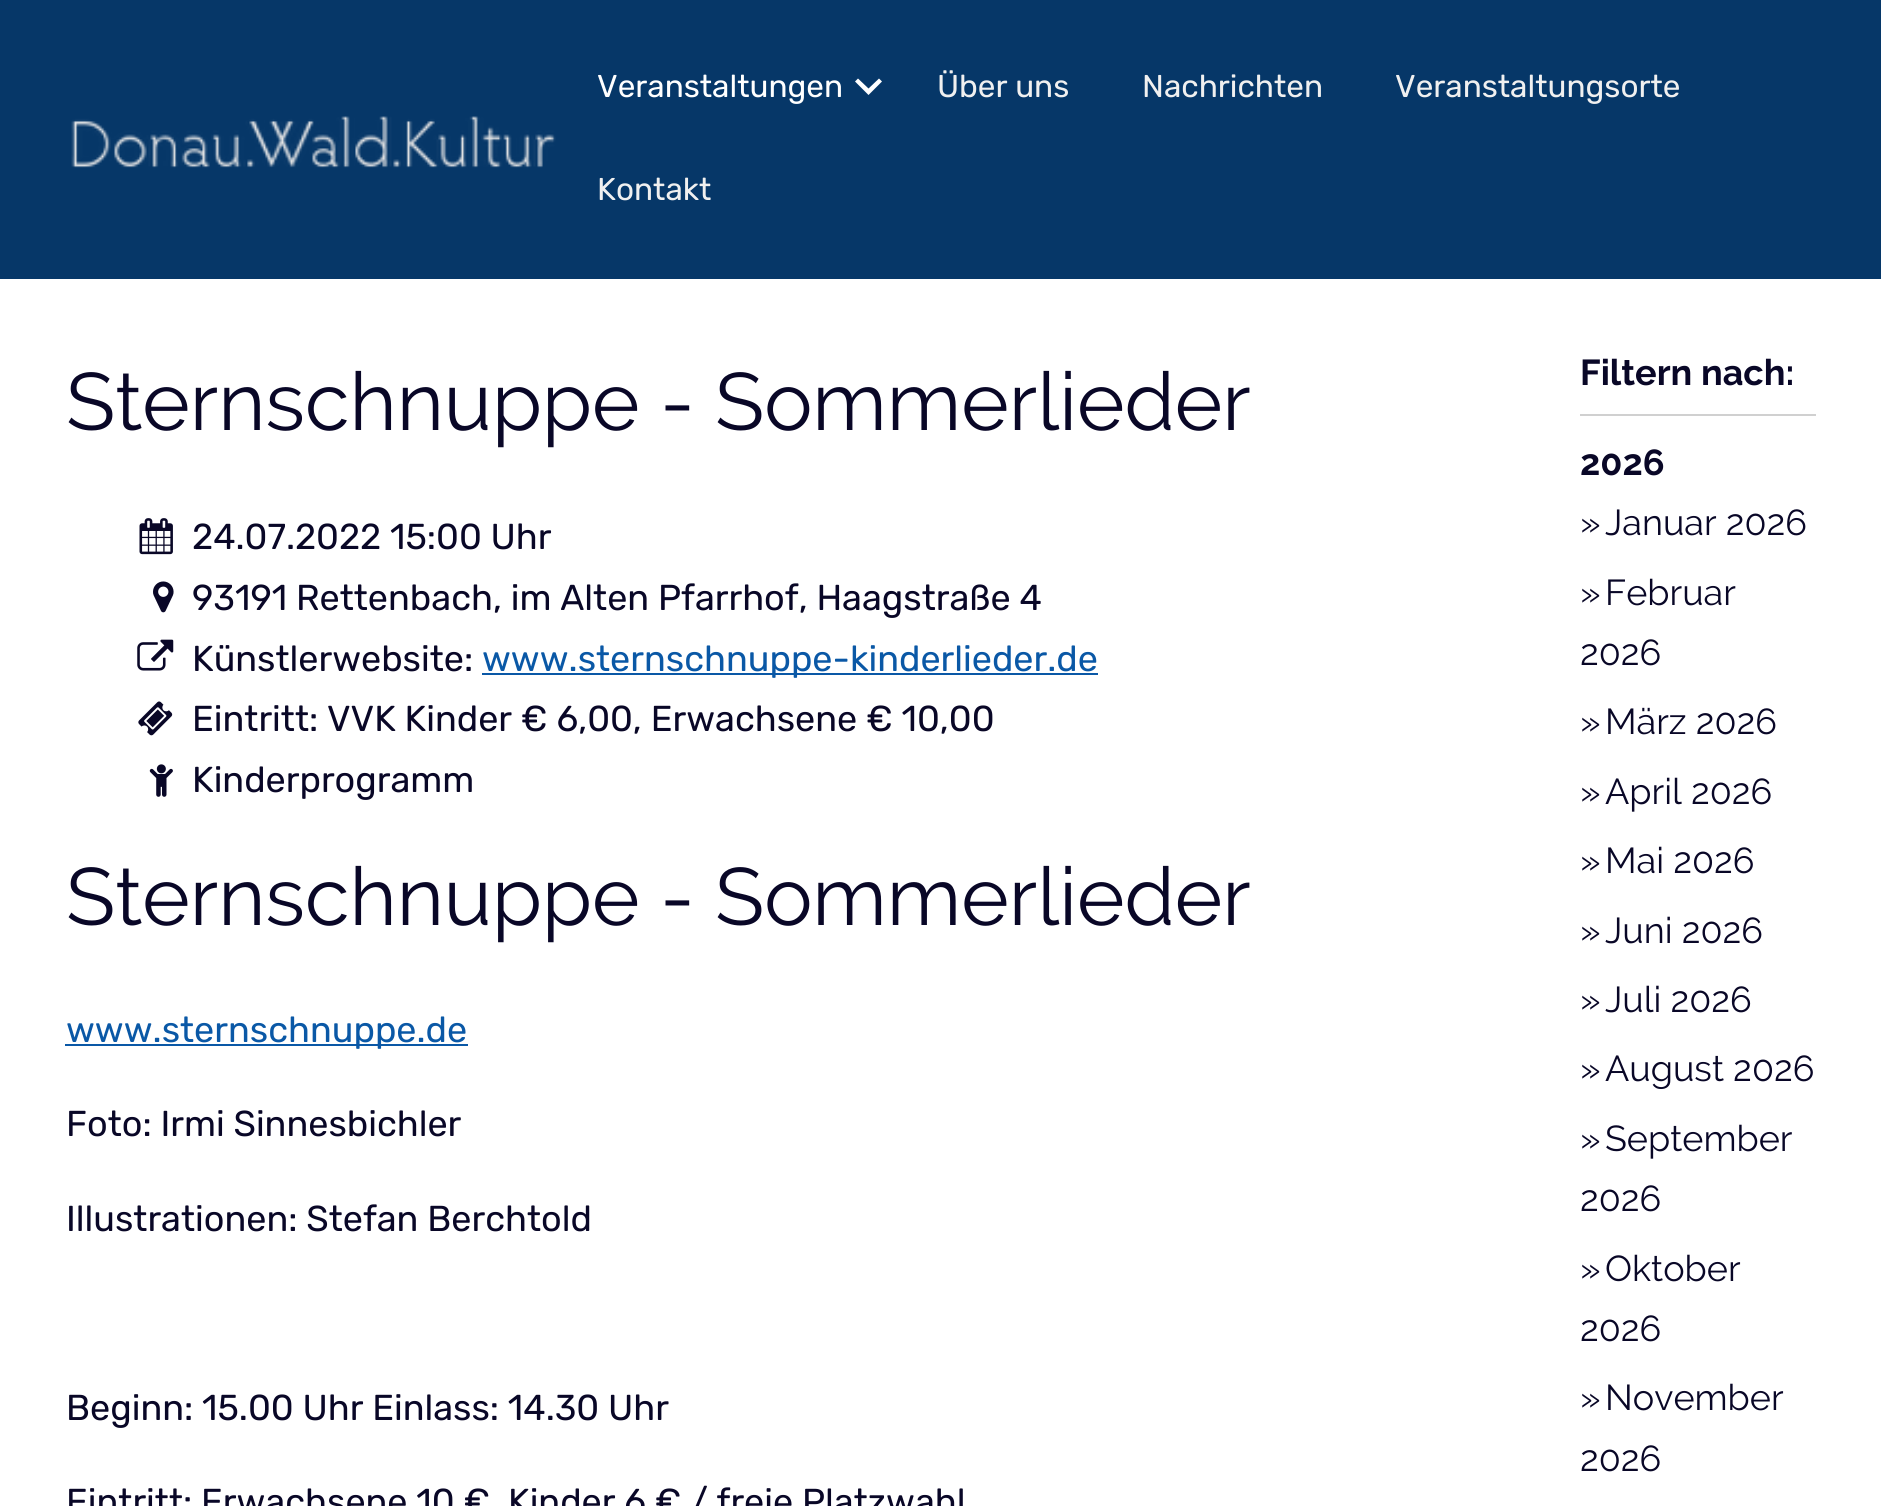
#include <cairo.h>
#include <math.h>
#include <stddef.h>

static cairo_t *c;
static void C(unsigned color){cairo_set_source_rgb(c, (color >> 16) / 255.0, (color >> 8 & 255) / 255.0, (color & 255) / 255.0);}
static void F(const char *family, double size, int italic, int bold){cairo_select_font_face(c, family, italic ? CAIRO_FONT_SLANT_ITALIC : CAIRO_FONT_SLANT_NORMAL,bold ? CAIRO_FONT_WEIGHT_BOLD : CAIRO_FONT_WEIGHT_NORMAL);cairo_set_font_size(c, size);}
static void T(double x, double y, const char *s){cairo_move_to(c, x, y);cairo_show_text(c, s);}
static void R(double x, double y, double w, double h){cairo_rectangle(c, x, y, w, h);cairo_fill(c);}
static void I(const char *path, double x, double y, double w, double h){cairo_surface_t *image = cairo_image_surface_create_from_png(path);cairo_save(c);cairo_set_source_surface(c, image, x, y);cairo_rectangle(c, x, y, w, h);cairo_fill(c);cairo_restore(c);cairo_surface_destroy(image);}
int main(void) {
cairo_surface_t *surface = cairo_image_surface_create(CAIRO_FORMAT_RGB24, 1881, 1506);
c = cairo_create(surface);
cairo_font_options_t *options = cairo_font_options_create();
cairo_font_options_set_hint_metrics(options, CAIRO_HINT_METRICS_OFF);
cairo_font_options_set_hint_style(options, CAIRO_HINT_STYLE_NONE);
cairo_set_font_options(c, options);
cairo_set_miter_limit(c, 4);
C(0xffffff);
cairo_paint(c);
C(0x063768);
R(0,0,1881,279);
I("1.png",71,116,485,52);
F("Rubik",31.5,0,0);
C(0xffffff);
T(597,97,"Veranstaltungen");
cairo_new_path(c);
cairo_move_to(c,858,78.5);
cairo_line_to(c,868.5,88.5);
cairo_line_to(c,879,78.5);
cairo_line_to(c,882,81.5);
cairo_line_to(c,868.5,95);
cairo_line_to(c,855,81.5);
cairo_close_path(c);
cairo_fill(c);
C(0xf0f0f0);
T(937,97,"Über uns");
T(1142,97,"Nachrichten");
T(1395,97,"Veranstaltungsorte");
T(597,200,"Kontakt");
F("Raleway",81,0,0);
C(0x090727);
T(66,430,"Sternschnuppe - Sommerlieder");
I("2.png",139,518,34,37);
F("Rubik",36,0,0);
T(192,549,"24.07.2022 15:00 Uhr");
I("3.png",153,581,21,32);
T(192,610,"93191 Rettenbach, im Alten Pfarrhof, Haagstraße 4");
I("4.png",137,639,37,32);
T(192,671,"Künstlerwebsite:");
C(0x0a58a6);
R(482,673,616,2);
T(482,671,"www.sternschnuppe-kinderlieder.de");
I("5.png",138,701,35,35);
C(0x090727);
T(192,731,"Eintritt: VVK Kinder € 6,00, Erwachsene € 10,00");
I("6.png",149,764,24,33);
T(192,792,"Kinderprogramm");
F("Raleway",81,0,0);
T(66,925,"Sternschnuppe - Sommerlieder");
C(0x0a58a6);
R(65,1044,403,2);
F("Rubik",36,0,0);
T(66,1042,"www.sternschnuppe.de");
C(0x090727);
T(66,1136,"Foto: Irmi Sinnesbichler");
T(66,1231,"Illustrationen: Stefan Berchtold");
T(66,1420,"Beginn: 15.00 Uhr Einlass: 14.30 Uhr");
T(66,1514,"Eintritt: Erwachsene 10 €, Kinder 6 € / freie Platzwahl");
C(0xd0d0d0);
R(1580,414,236,2);
F("Raleway",36,0,1);
C(0x090727);
T(1580,385,"Filtern nach:");
T(1580,475,"2026");
F("Raleway",36,0,0);
T(1580,535,"»");
T(1605,535,"Januar 2026");
T(1580,605,"»");
T(1605,605,"Februar");
T(1580,665,"2026");
T(1580,734,"»");
T(1605,734,"März 2026");
T(1580,804,"»");
T(1605,804,"April 2026");
T(1580,873,"»");
T(1605,873,"Mai 2026");
T(1580,943,"»");
T(1605,943,"Juni 2026");
T(1580,1012,"»");
T(1605,1012,"Juli 2026");
T(1580,1081,"»");
T(1605,1081,"August 2026");
T(1580,1151,"»");
T(1605,1151,"September");
T(1580,1211,"2026");
T(1580,1281,"»");
T(1605,1281,"Oktober");
T(1580,1341,"2026");
T(1580,1410,"»");
T(1605,1410,"November");
T(1580,1471,"2026");
cairo_surface_write_to_png(surface, "o.png");
cairo_font_options_destroy(options);
cairo_destroy(c);
cairo_surface_destroy(surface);
return 0;
}
